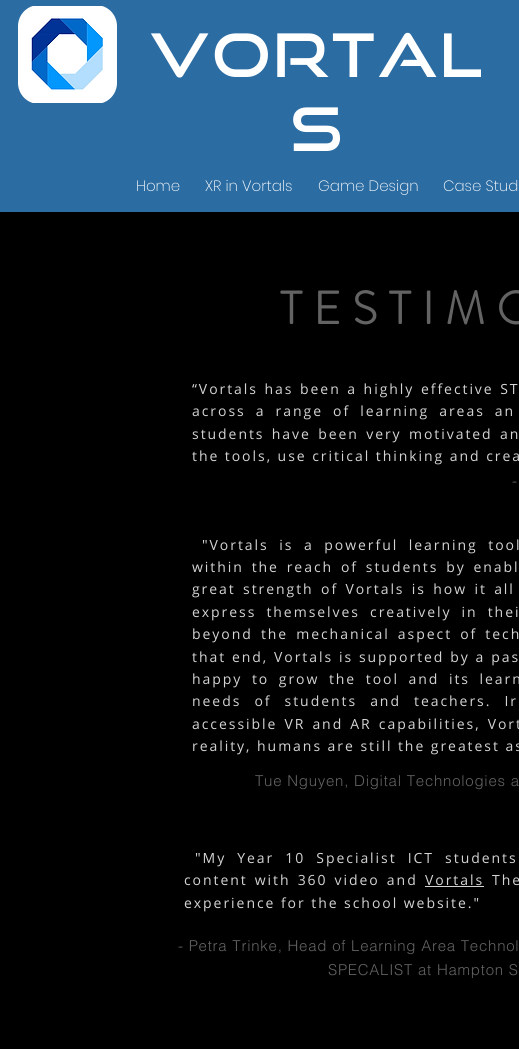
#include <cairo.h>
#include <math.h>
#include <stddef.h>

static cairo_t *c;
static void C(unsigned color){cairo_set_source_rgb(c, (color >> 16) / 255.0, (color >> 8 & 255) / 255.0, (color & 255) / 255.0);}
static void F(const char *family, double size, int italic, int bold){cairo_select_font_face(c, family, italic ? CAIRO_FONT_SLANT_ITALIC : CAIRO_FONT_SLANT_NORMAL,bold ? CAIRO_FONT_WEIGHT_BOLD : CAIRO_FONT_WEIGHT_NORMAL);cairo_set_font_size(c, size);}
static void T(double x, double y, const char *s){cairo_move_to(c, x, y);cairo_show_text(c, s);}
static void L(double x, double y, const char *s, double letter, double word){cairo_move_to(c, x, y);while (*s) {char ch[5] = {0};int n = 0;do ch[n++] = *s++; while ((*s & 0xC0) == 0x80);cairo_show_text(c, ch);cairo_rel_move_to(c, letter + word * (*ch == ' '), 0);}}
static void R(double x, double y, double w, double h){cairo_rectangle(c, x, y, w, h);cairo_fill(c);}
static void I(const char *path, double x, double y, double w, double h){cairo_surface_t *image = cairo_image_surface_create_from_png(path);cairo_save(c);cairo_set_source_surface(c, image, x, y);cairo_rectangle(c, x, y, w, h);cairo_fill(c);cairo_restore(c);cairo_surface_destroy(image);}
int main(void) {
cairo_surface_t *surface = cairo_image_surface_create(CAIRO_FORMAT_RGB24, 519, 1049);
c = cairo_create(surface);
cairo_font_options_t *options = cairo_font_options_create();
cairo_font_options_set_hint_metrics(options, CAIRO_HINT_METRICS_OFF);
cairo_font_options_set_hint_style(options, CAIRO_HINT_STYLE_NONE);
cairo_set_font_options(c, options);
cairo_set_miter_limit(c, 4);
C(0x2b6ca3);
cairo_paint(c);
I("1.png",18,6,99,97);
F("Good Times",60,0,0);
C(0xffffff);
L(150,77,"VORTAL",3,0);
L(290,151,"S",3,0);
F("Poppins ExtraLight",15,0,0);
T(136,191,"Home");
T(205,191,"XR in Vortals");
T(318,191,"Game Design");
T(443,191,"Case Stud");
C(0x000000);
R(0,212,519,837);
F("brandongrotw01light",46,0,1);
C(0x636363);
L(280,324,"TESTIMO",11.5,0);
F("Open Sans",14,0,0);
C(0xd4d4d4);
L(192,394,"“Vortals has been a highly effective ST",1.95,1);
L(192,416,"across a range of learning areas an",1.95,4.5);
L(192,439,"students have been very motivated an",1.95,1.75);
L(192,461,"the tools, use critical thinking and crea",1.95,0);
F("helvetica Light",15,0,0);
C(0x636363);
L(512,486,"-",.75,0);
F("Open Sans",14,0,0);
C(0xd4d4d4);
L(202,550,"\"Vortals is a powerful learning tool",1.95,5);
L(192,572,"within the reach of students by enabl",1.95,2.25);
L(192,594,"great strength of Vortals is how it all",1.95,1.75);
L(192,617,"express themselves creatively in thei",1.95,4.5);
L(192,639,"beyond the mechanical aspect of tech",1.95,2.5);
L(192,662,"that end, Vortals is supported by a pas",1.95,.25);
L(192,684,"happy to grow the tool and its learn",1.95,4);
L(192,706,"needs of students and teachers. Ir",1.95,7.5);
L(192,729,"accessible VR and AR capabilities, Vort",1.95,1.5);
L(192,751,"reality, humans are still the greatest as",1.95,0);
F("helvetica Light",15,0,0);
C(0x636363);
L(255,786,"Tue Nguyen, Digital Technologies a",.75,0);
F("Open Sans",14,0,0);
C(0xd4d4d4);
L(195,863,"\"My Year 10 Specialist ICT students",1.95,5.5);
L(184,885,"content with 360 video and",1.95,1.5);
L(425,885,"Vortals",1.95,0);
R(425,886,59,1);
L(492,885,"The",1.95,1.5);
L(184,908,"experience for the school website.\"",1.95,0);
F("helvetica Light",15,0,0);
C(0x636363);
L(178,951,"- Petra Trinke, Head of Learning Area Technol",.75,0);
L(328,975,"SPECALIST at Hampton S",.75,0);
cairo_surface_write_to_png(surface, "o.png");
cairo_font_options_destroy(options);
cairo_destroy(c);
cairo_surface_destroy(surface);
return 0;
}
